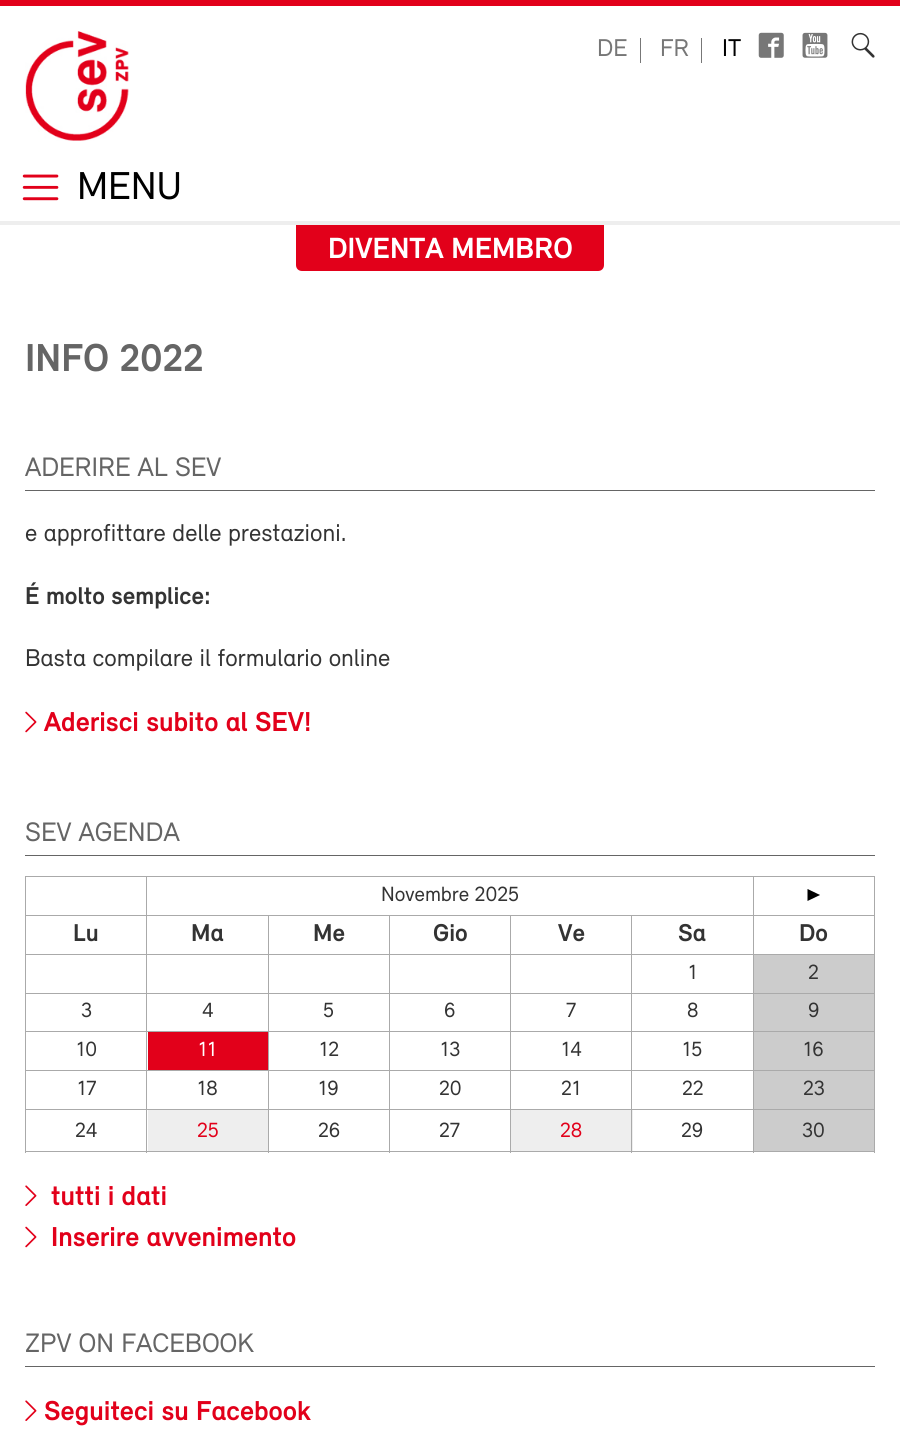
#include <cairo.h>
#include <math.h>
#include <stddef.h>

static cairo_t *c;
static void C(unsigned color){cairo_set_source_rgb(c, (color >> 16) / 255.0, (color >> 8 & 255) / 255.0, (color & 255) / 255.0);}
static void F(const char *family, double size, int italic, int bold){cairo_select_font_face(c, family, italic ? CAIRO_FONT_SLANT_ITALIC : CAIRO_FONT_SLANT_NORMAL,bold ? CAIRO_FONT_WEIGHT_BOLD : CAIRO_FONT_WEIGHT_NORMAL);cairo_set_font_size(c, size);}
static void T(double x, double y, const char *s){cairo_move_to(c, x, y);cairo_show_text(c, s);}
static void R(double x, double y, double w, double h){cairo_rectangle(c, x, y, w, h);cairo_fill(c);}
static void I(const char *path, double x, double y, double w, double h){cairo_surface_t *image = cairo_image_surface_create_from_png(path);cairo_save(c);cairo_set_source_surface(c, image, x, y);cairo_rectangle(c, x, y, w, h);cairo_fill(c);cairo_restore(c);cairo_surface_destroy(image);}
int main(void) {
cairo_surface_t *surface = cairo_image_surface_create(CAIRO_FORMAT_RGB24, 900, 1438);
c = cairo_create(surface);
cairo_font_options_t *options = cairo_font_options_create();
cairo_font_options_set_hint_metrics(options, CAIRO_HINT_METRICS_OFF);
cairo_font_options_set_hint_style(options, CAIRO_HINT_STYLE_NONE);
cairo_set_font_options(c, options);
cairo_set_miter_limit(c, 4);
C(0xffffff);
cairo_paint(c);
C(0xe2001a);
R(0,0,900,6);
C(0xeeeeee);
R(0,221,900,4);
I("1.png",25,31,104,110);
C(0x777777);
R(640,38,1,25);
F("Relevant",25,0,0);
T(597,56,"DE");
R(701,38,1,25);
T(660,56,"FR");
C(0x000000);
T(722,56,"IT");
I("2.png",758,32,26,26);
I("3.png",802,32,26,26);
I("4.png",851,32,24,26);
I("5.png",22,174,37,27);
F("Relevant",40,0,0);
T(77,199,"MENU");
C(0xe2001a);
cairo_new_path(c);
cairo_move_to(c,296,225);
cairo_line_to(c,604,225);
cairo_line_to(c,604,265);
cairo_curve_to(c,604,268.5,601.5,271,598,271);
cairo_line_to(c,302,271);
cairo_curve_to(c,298.5,271,296,268.5,296,265);
cairo_close_path(c);
cairo_fill(c);
F("Relevant",30,0,1);
C(0xffffff);
T(328,258,"DIVENTA MEMBRO");
F("Relevant",40,0,1);
C(0x656565);
T(25,371,"INFO 2022");
R(25,490,850,1);
F("Relevant",27.5,0,0);
T(25,476,"ADERIRE AL SEV");
F("Relevant",25,0,0);
C(0x333333);
T(25,541,"e approfittare delle prestazioni.");
F("Relevant",25,0,1);
T(25,604,"É molto semplice:");
F("Relevant",25,0,0);
T(25,666,"Basta compilare il formulario online");
I("6.png",25,711,12,22);
F("Relevant",28.1,0,1);
C(0xe2001a);
T(44,731,"Aderisci subito al SEV!");
C(0x656565);
R(25,855,850,1);
F("Relevant",27.5,0,0);
T(25,841,"SEV AGENDA");
C(0xaaaaaa);
R(25,876,850,1);
R(874,876,1,277);
R(25,1151,850,1);
R(25,876,1,277);
R(753,915,122,1);
R(753,954,122,1);
R(753,993,122,1);
R(753,1031,122,1);
R(753,1070,122,1);
R(753,1109,122,1);
R(753,1109,1,44);
R(631,1109,123,1);
R(753,1070,1,40);
R(631,1070,123,1);
R(753,1031,1,40);
R(631,1031,123,1);
R(753,993,1,40);
R(631,993,123,1);
R(753,954,1,40);
R(631,954,123,1);
R(753,915,1,40);
R(631,915,123,1);
C(0xeeeeee);
R(511,1110,122,41);
C(0xaaaaaa);
R(631,1109,1,44);
R(510,1109,123,1);
R(631,1070,1,40);
R(510,1070,123,1);
R(631,1031,1,40);
R(510,1031,123,1);
R(631,993,1,40);
R(510,993,123,1);
R(631,954,1,40);
R(510,954,123,1);
R(631,915,1,40);
R(510,915,123,1);
R(510,1109,1,44);
R(389,1109,122,1);
R(510,1070,1,40);
R(389,1070,122,1);
R(510,1031,1,40);
R(389,1031,122,1);
R(510,993,1,40);
R(389,993,122,1);
R(510,954,1,40);
R(389,954,122,1);
R(510,915,1,40);
R(389,915,122,1);
R(389,1109,1,44);
R(268,1109,122,1);
R(389,1070,1,40);
R(268,1070,122,1);
R(389,1031,1,40);
R(268,1031,122,1);
R(389,993,1,40);
R(268,993,122,1);
R(389,954,1,40);
R(268,954,122,1);
R(389,915,1,40);
R(268,915,122,1);
R(268,1109,1,44);
R(146,1109,123,1);
R(268,1070,1,40);
R(146,1070,123,1);
R(268,1031,1,40);
R(146,1031,123,1);
R(268,993,1,40);
R(146,993,123,1);
R(268,954,1,40);
R(146,954,123,1);
R(268,915,1,40);
R(146,915,123,1);
R(146,1109,1,44);
R(25,1109,123,1);
R(146,1070,1,40);
R(25,1070,123,1);
R(146,1031,1,40);
R(25,1031,123,1);
R(146,993,1,40);
R(25,993,123,1);
R(146,954,1,40);
R(25,954,123,1);
R(146,915,1,40);
R(25,915,123,1);
R(146,876,1,40);
F("Relevant",21.25,0,0);
C(0x333333);
T(381,901,"Novembre 2025");
C(0xaaaaaa);
R(753,876,1,40);
C(0x000000);
cairo_new_path(c);
cairo_move_to(c,807.5,901);
cairo_line_to(c,807.5,889);
cairo_line_to(c,820,895);
cairo_close_path(c);
cairo_fill(c);
F("Relevant",25,0,1);
C(0x333333);
T(73,941,"Lu");
T(191,941,"Ma");
T(313,941,"Me");
T(433,941,"Gio");
T(558,941,"Ve");
T(678,941,"Sa");
T(799,941,"Do");
F("Relevant",21.25,0,0);
T(688,979,"1");
C(0xcccccc);
R(754,955,120,38);
C(0x333333);
T(808,979,"2");
T(81,1017,"3");
T(202,1017,"4");
T(323,1017,"5");
T(444,1017,"6");
T(566,1017,"7");
T(687,1017,"8");
C(0xcccccc);
R(754,994,120,37);
C(0x333333);
T(808,1017,"9");
T(76,1056,"10");
C(0xe2001a);
R(148,1032,120,38);
C(0xffffff);
T(198,1056,"11");
C(0x333333);
T(319,1056,"12");
T(440,1056,"13");
T(561,1056,"14");
T(682,1056,"15");
C(0xcccccc);
R(754,1032,120,38);
C(0x333333);
T(803,1056,"16");
T(77,1095,"17");
T(197,1095,"18");
T(318,1095,"19");
T(439,1095,"20");
T(561,1095,"21");
T(682,1095,"22");
C(0xcccccc);
R(754,1071,120,38);
C(0x333333);
T(803,1095,"23");
T(75,1137,"24");
C(0xeeeeee);
R(148,1110,120,41);
C(0xe2001a);
T(197,1137,"25");
C(0x333333);
T(318,1137,"26");
T(439,1137,"27");
C(0xe2001a);
T(560,1137,"28");
C(0x333333);
T(681,1137,"29");
C(0xcccccc);
R(754,1110,120,41);
C(0x333333);
T(802,1137,"30");
I("7.png",25,1185,12,21);
F("Relevant",28.1,0,1);
C(0xe2001a);
T(51,1205,"tutti i dati");
I("6.png",25,1226,12,22);
T(51,1246,"Inserire avvenimento");
C(0x656565);
R(25,1366,850,1);
F("Relevant",27.5,0,0);
T(25,1352,"ZPV ON FACEBOOK");
I("7.png",25,1400,12,21);
F("Relevant",28.1,0,1);
C(0xe2001a);
T(44,1420,"Seguiteci su Facebook");
cairo_surface_write_to_png(surface, "o.png");
cairo_font_options_destroy(options);
cairo_destroy(c);
cairo_surface_destroy(surface);
return 0;
}
